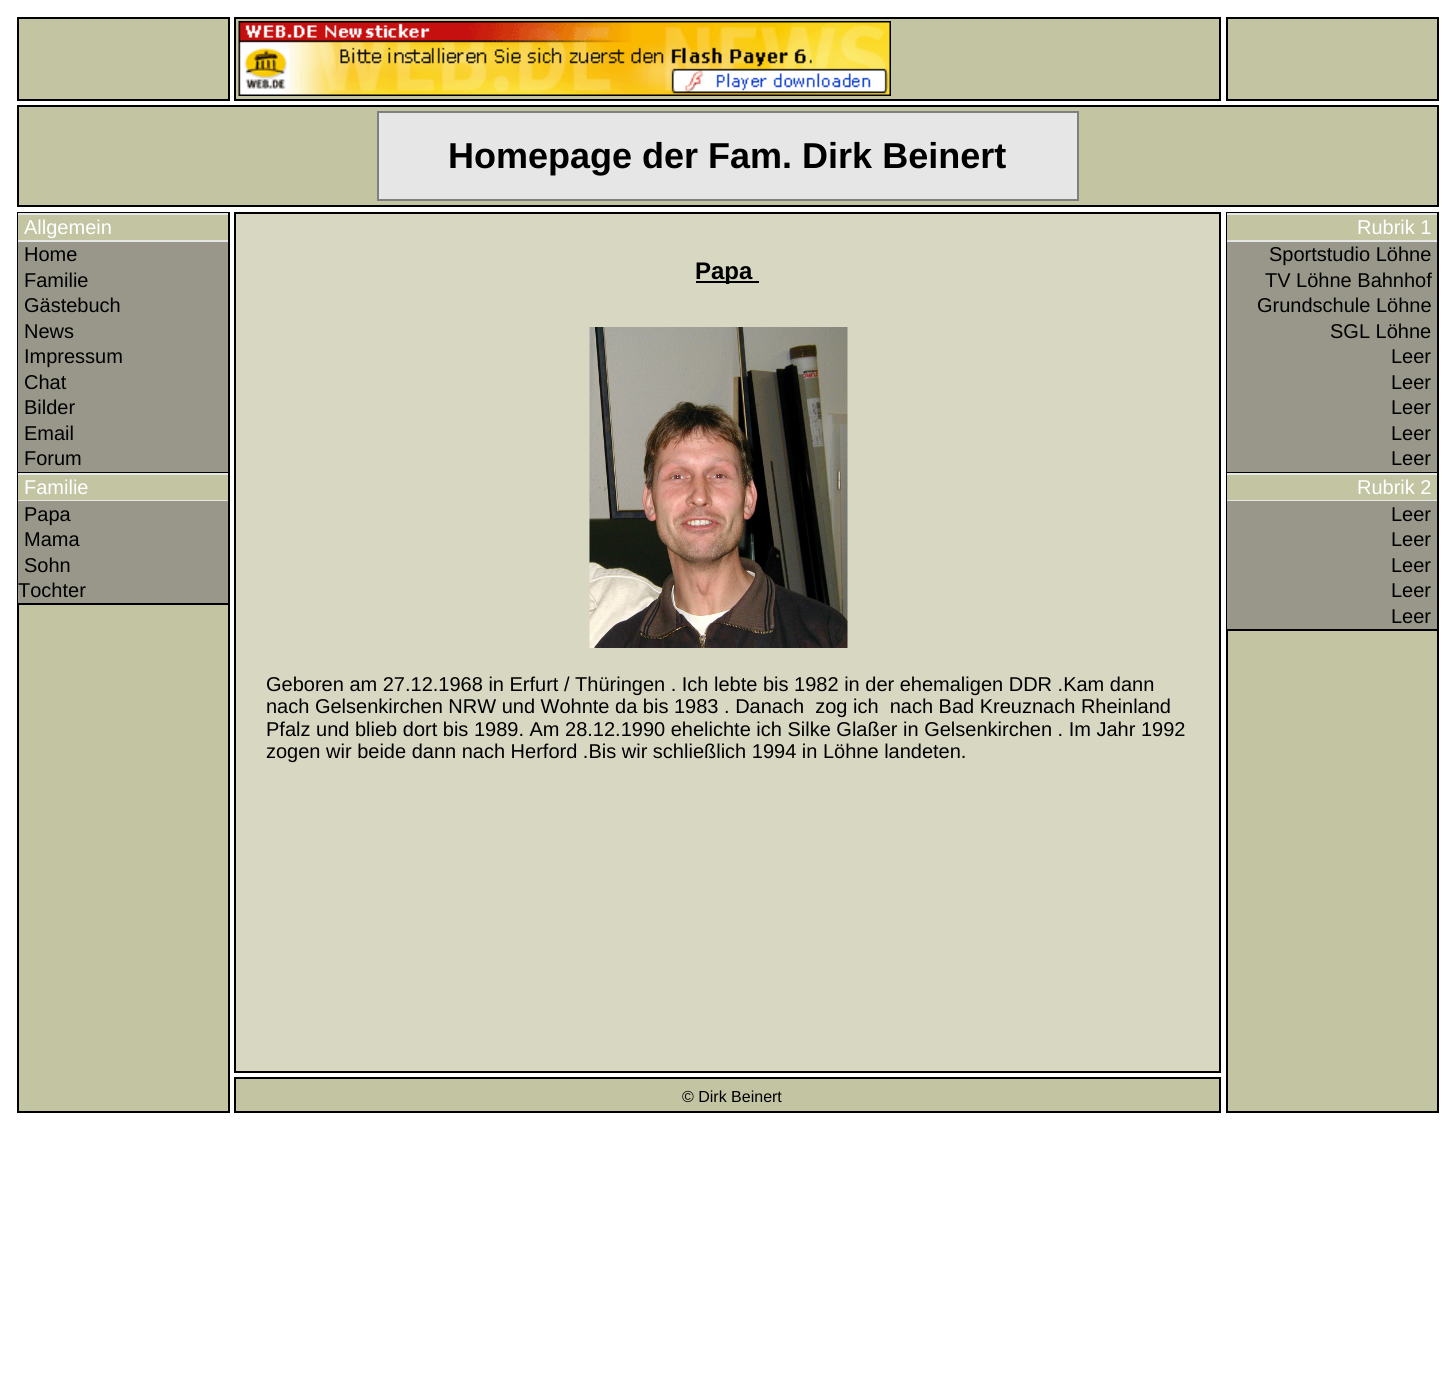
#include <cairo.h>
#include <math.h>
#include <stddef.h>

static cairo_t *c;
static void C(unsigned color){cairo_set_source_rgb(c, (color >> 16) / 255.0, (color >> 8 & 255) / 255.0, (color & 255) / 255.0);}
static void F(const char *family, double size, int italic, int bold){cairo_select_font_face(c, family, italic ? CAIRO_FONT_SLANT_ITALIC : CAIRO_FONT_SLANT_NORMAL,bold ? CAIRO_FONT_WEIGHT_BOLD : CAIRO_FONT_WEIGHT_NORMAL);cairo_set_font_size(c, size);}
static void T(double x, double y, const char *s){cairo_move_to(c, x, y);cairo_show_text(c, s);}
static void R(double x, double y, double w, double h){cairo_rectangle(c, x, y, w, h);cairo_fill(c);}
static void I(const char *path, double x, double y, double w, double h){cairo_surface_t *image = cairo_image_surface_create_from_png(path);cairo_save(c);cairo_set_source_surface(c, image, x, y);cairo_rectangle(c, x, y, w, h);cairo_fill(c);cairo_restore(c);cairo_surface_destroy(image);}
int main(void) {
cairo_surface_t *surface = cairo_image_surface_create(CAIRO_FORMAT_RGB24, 1455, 1398);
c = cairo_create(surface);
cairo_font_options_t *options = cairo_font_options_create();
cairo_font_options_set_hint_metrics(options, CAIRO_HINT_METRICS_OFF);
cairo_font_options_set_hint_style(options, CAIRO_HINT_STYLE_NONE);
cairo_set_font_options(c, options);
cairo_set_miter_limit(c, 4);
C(0xffffff);
cairo_paint(c);
C(0xc2c4a2);
cairo_rectangle(c,18,18,211,82);
cairo_fill_preserve(c);
C(0x000000);
cairo_stroke(c);
C(0xc2c4a2);
cairo_rectangle(c,235,18,985,82);
cairo_fill_preserve(c);
C(0x000000);
cairo_stroke(c);
I("1.png",238,21,653,75);
C(0xc2c4a2);
cairo_rectangle(c,1227,18,211,82);
cairo_fill_preserve(c);
C(0x000000);
cairo_stroke(c);
C(0xc2c4a2);
cairo_rectangle(c,18,106,1420,100);
cairo_fill_preserve(c);
C(0x000000);
cairo_stroke(c);
C(0xe6e6e6);
cairo_rectangle(c,378,112,700,88);
cairo_fill_preserve(c);
C(0x808080);
cairo_stroke(c);
F("Liberation Sans",36,0,1);
C(0x000000);
T(448,168,"Homepage der Fam. Dirk Beinert");
C(0xc2c4a2);
R(19,605,209,506);
cairo_rectangle(c,18,213,211,899);
C(0x000000);
cairo_stroke(c);
C(0xc2c4a2);
R(18,215,210,25);
C(0xe6e6e6);
R(18,213,210,2);
R(18,240,210,2);
F("Liberation Sans",20,0,0);
C(0xffffff);
T(24,234,"Allgemein");
C(0x989789);
R(18,242,210,230);
C(0x000000);
T(24,261,"Home");
T(24,287,"Familie");
T(24,312,"Gästebuch");
T(24,338,"News");
T(24,363,"Impressum");
T(24,389,"Chat");
T(24,414,"Bilder");
T(24,440,"Email");
R(18,472,210,1);
T(24,465,"Forum");
C(0xc2c4a2);
R(18,475,210,25);
C(0xe6e6e6);
R(18,473,210,2);
R(18,500,210,1);
C(0xffffff);
T(24,494,"Familie");
C(0x989789);
R(18,501,210,102);
C(0x000000);
T(24,521,"Papa");
T(24,546,"Mama");
T(24,572,"Sohn");
T(18,597,"Tochter");
R(18,603,210,2);
C(0xd8d7c2);
cairo_rectangle(c,235,213,985,859);
cairo_fill_preserve(c);
C(0x000000);
cairo_stroke(c);
R(696,281,63,2);
F("Liberation Sans",24,0,1);
T(695,279,"Papa");
I("2.png",589,327,259,321);
F("Liberation Sans",20,0,0);
T(266,691,"Geboren am 27.12.1968 in Erfurt / Thüringen . Ich lebte bis 1982 in der ehemaligen DDR .Kam dann");
T(266,713,"nach Gelsenkirchen NRW und Wohnte da bis 1983 . Danach  zog ich  nach Bad Kreuznach Rheinland");
T(266,736,"Pfalz und blieb dort bis 1989. Am 28.12.1990 ehelichte ich Silke Glaßer in Gelsenkirchen . Im Jahr 1992");
T(266,758,"zogen wir beide dann nach Herford .Bis wir schließlich 1994 in Löhne landeten.");
C(0xc2c4a2);
R(1228,631,209,480);
cairo_rectangle(c,1227,213,211,899);
C(0x000000);
cairo_stroke(c);
C(0xc2c4a2);
R(1227,215,210,25);
C(0xe6e6e6);
R(1227,213,210,2);
R(1227,240,210,2);
C(0xffffff);
T(1357,234,"Rubrik 1");
C(0x989789);
R(1227,242,210,230);
C(0x000000);
T(1269,261,"Sportstudio Löhne");
T(1265,287,"TV Löhne Bahnhof");
T(1257,312,"Grundschule Löhne");
T(1330,338,"SGL Löhne");
T(1391,363,"Leer");
T(1391,389,"Leer");
T(1391,414,"Leer");
T(1391,440,"Leer");
R(1227,472,210,1);
T(1391,465,"Leer");
C(0xc2c4a2);
R(1227,475,210,25);
C(0xe6e6e6);
R(1227,473,210,2);
R(1227,500,210,1);
C(0xffffff);
T(1357,494,"Rubrik 2");
C(0x989789);
R(1227,501,210,128);
C(0x000000);
T(1391,521,"Leer");
T(1391,546,"Leer");
T(1391,572,"Leer");
T(1391,597,"Leer");
R(1227,629,210,2);
T(1391,623,"Leer");
C(0xc2c4a2);
cairo_rectangle(c,235,1078,985,34);
cairo_fill_preserve(c);
C(0x000000);
cairo_stroke(c);
F("Liberation Sans",16,0,0);
T(682,1102,"© Dirk Beinert");
cairo_surface_write_to_png(surface, "o.png");
cairo_font_options_destroy(options);
cairo_destroy(c);
cairo_surface_destroy(surface);
return 0;
}
